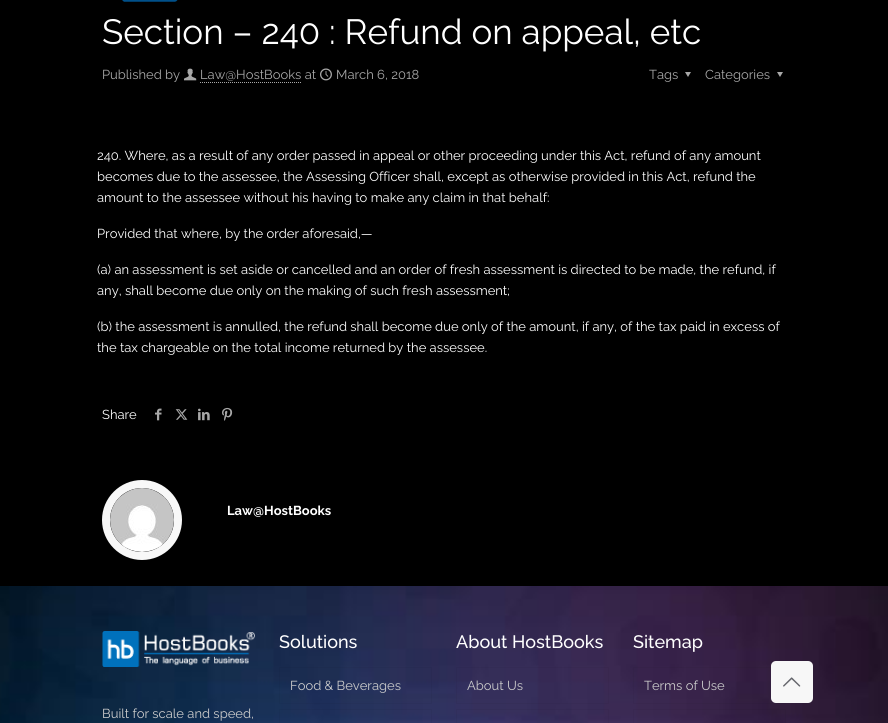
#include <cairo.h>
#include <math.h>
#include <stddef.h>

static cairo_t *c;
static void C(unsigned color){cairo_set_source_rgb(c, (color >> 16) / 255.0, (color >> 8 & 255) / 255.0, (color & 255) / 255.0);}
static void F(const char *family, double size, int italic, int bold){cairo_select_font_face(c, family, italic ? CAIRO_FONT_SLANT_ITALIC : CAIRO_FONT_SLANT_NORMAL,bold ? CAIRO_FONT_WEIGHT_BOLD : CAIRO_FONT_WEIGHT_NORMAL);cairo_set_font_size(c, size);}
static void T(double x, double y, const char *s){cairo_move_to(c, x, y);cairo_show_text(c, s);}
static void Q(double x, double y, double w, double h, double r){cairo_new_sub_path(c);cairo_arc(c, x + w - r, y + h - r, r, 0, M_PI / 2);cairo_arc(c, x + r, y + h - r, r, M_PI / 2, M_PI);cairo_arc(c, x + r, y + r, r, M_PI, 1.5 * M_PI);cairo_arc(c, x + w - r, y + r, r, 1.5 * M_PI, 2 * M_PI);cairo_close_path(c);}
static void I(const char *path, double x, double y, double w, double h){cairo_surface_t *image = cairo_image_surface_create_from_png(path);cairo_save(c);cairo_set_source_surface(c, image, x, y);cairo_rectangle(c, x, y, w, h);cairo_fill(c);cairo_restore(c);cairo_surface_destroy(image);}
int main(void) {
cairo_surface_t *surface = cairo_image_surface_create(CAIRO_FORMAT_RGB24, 888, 723);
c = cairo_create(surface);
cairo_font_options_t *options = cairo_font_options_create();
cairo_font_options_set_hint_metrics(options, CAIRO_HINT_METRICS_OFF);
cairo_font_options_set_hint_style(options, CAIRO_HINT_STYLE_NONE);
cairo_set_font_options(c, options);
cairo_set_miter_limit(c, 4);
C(0x000000);
cairo_paint(c);
I("1.png",122,0,56,2);
F("Raleway Thin",35,0,0);
C(0xffffff);
T(102,44,"Section – 240 : Refund on appeal, etc");
F("Raleway Thin",13,0,0);
C(0xa8a8a8);
T(102,79,"Published by");
I("2.png",184,68,13,13);
T(200,79,"Law@HostBooks at");
cairo_new_path(c);
cairo_move_to(c,200,82.5);
cairo_line_to(c,301,82.5);
cairo_set_line_width(c,1);
cairo_set_dash(c,(double[]){1,1},2,0);
cairo_stroke(c);
I("3.png",320,68,12,13);
T(336,79,"March 6, 2018");
T(649,79,"Tags");
cairo_new_path(c);
cairo_move_to(c,691,72);
cairo_line_to(c,688,77);
cairo_line_to(c,685,72);
cairo_close_path(c);
cairo_fill(c);
T(705,79,"Categories");
cairo_new_path(c);
cairo_move_to(c,783,72);
cairo_line_to(c,780,77);
cairo_line_to(c,777,72);
cairo_close_path(c);
cairo_fill(c);
C(0xffffff);
T(97,160,"240. Where, as a result of any order passed in appeal or other proceeding under this Act, refund of any amount");
T(97,181,"becomes due to the assessee, the Assessing Officer shall, except as otherwise provided in this Act, refund the");
T(97,202,"amount to the assessee without his having to make any claim in that behalf:");
T(97,238,"Provided that where, by the order aforesaid,—");
T(97,274,"(a) an assessment is set aside or cancelled and an order of fresh assessment is directed to be made, the refund, if");
T(97,295,"any, shall become due only on the making of such fresh assessment;");
T(97,331,"(b) the assessment is annulled, the refund shall become due only of the amount, if any, of the tax paid in excess of");
T(97,352,"the tax chargeable on the total income returned by the assessee.");
T(102,419,"Share");
I("4.png",155,408,7,13);
I("5.png",175,409,13,11);
I("6.png",198,408,12,13);
I("7.png",222,407,11,14);
cairo_arc(c,142,520,36,0,2 * M_PI);
C(0xf8f8f8);
cairo_set_line_width(c,8);
cairo_set_dash(c,NULL,0,0);
cairo_stroke(c);
I("8.png",110,488,64,64);
F("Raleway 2 Thin",13,0,0);
C(0xffffff);
T(227,515,"Law@HostBooks");
I("9.png",0,586,888,137);
F("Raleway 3 Thin",18,0,0);
T(279,648,"Solutions");
cairo_rectangle(c,279.5,667.5,152,36);
cairo_set_source_rgba(c,0,0,0,0.04);
cairo_set_line_width(c,1);
cairo_stroke(c);
F("Raleway Thin",13,0,0);
C(0xcccccc);
T(290,690,"Food & Beverages");
cairo_rectangle(c,279.5,709.5,152,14);
cairo_set_source_rgba(c,0,0,0,0.04);
cairo_stroke(c);
F("Raleway 3 Thin",18,0,0);
C(0xffffff);
T(456,648,"About HostBooks");
cairo_rectangle(c,456.5,667.5,152,36);
cairo_set_source_rgba(c,0,0,0,0.04);
cairo_stroke(c);
F("Raleway Thin",13,0,0);
C(0xcccccc);
T(467,690,"About Us");
cairo_rectangle(c,456.5,709.5,152,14);
cairo_set_source_rgba(c,0,0,0,0.04);
cairo_stroke(c);
F("Raleway 3 Thin",18,0,0);
C(0xffffff);
T(633,648,"Sitemap");
cairo_rectangle(c,633.5,667.5,152,36);
cairo_set_source_rgba(c,0,0,0,0.04);
cairo_stroke(c);
F("Raleway Thin",13,0,0);
C(0xcccccc);
T(644,690,"Terms of Use");
cairo_rectangle(c,633.5,709.5,152,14);
cairo_set_source_rgba(c,0,0,0,0.04);
cairo_stroke(c);
I("10.png",102,631,153,36);
C(0xcccccc);
T(102,718,"Built for scale and speed,");
C(0xf7f7f7);
Q(771,661,42,42,5);
cairo_fill(c);
I("11.png",783,677,18,10);
cairo_surface_write_to_png(surface, "o.png");
cairo_font_options_destroy(options);
cairo_destroy(c);
cairo_surface_destroy(surface);
return 0;
}
